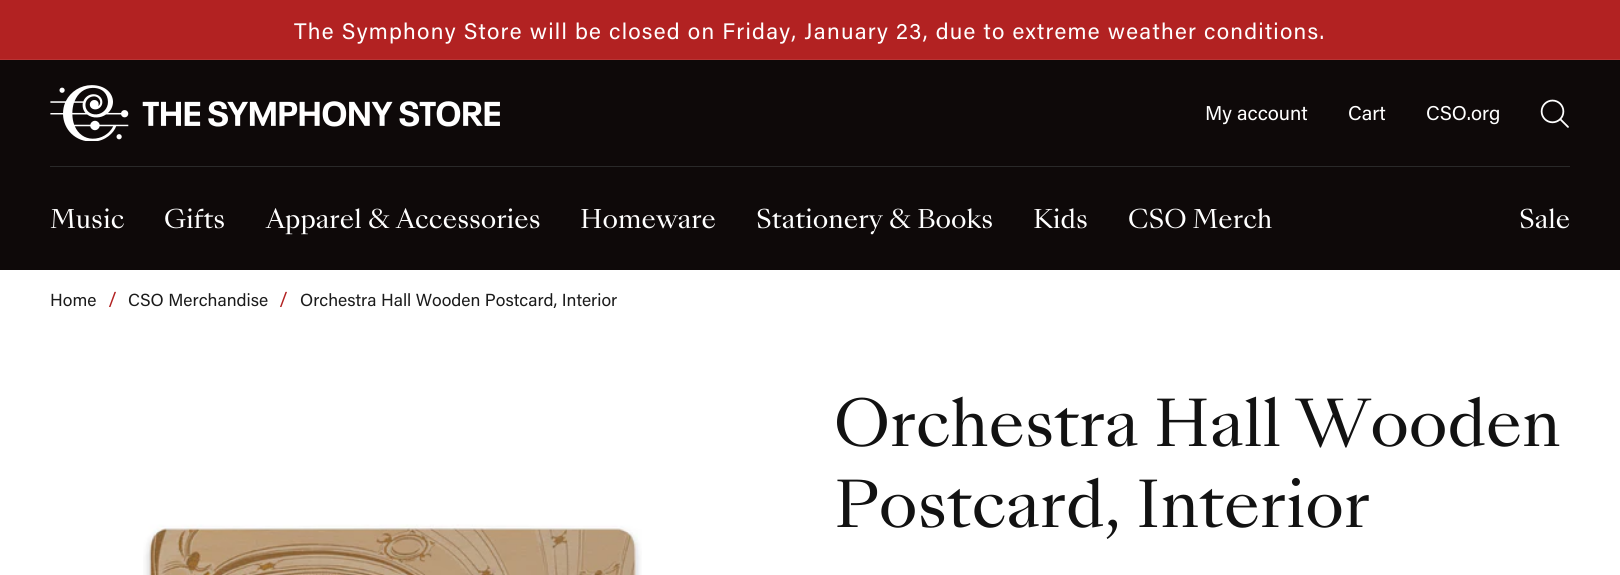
#include <cairo.h>
#include <math.h>
#include <stddef.h>

static cairo_t *c;
static void C(unsigned color){cairo_set_source_rgb(c, (color >> 16) / 255.0, (color >> 8 & 255) / 255.0, (color & 255) / 255.0);}
static void F(const char *family, double size, int italic, int bold){cairo_select_font_face(c, family, italic ? CAIRO_FONT_SLANT_ITALIC : CAIRO_FONT_SLANT_NORMAL,bold ? CAIRO_FONT_WEIGHT_BOLD : CAIRO_FONT_WEIGHT_NORMAL);cairo_set_font_size(c, size);}
static void T(double x, double y, const char *s){cairo_move_to(c, x, y);cairo_show_text(c, s);}
static void L(double x, double y, const char *s, double letter, double word){cairo_move_to(c, x, y);while (*s) {char ch[5] = {0};int n = 0;do ch[n++] = *s++; while ((*s & 0xC0) == 0x80);cairo_show_text(c, ch);cairo_rel_move_to(c, letter + word * (*ch == ' '), 0);}}
static void R(double x, double y, double w, double h){cairo_rectangle(c, x, y, w, h);cairo_fill(c);}
static void I(const char *path, double x, double y, double w, double h){cairo_surface_t *image = cairo_image_surface_create_from_png(path);cairo_save(c);cairo_set_source_surface(c, image, x, y);cairo_rectangle(c, x, y, w, h);cairo_fill(c);cairo_restore(c);cairo_surface_destroy(image);}
int main(void) {
cairo_surface_t *surface = cairo_image_surface_create(CAIRO_FORMAT_RGB24, 1620, 575);
c = cairo_create(surface);
cairo_font_options_t *options = cairo_font_options_create();
cairo_font_options_set_hint_metrics(options, CAIRO_HINT_METRICS_OFF);
cairo_font_options_set_hint_style(options, CAIRO_HINT_STYLE_NONE);
cairo_set_font_options(c, options);
cairo_set_miter_limit(c, 4);
C(0xffffff);
cairo_paint(c);
C(0xb22222);
R(0,0,1620,59);
C(0xb83434);
R(0,59,1620,1);
F("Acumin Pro",22.5,0,0);
C(0xffffff);
L(294,39,"The Symphony Store will be closed on Friday, January 23, due to extreme weather conditions.",1.25,0);
C(0x0e0909);
R(0,60,1620,210);
C(0x292929);
R(50,166,1520,1);
I("1.png",50,85,450,56);
F("Acumin Pro",20,0,0);
C(0xffffff);
T(1205,120,"My account");
T(1348,120,"Cart");
T(1426,120,"CSO.org");
I("2.png",1540,99,29,29);
F("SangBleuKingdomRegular",25,0,0);
T(50,228,"Music");
T(164,228,"Gifts");
T(266,228,"Apparel & Accessories");
T(580,228,"Homeware");
T(756,228,"Stationery & Books");
T(1033,228,"Kids");
T(1128,228,"CSO Merch");
T(1519,228,"Sale");
F("Acumin Pro",17.5,0,0);
C(0x1b1b1b);
T(50,306,"Home");
F("Acumin Pro",20,0,0);
C(0xb22222);
T(108,306,"/");
F("Acumin Pro",17.5,0,0);
C(0x1b1b1b);
T(128,306,"CSO Merchandise");
F("Acumin Pro",20,0,0);
C(0xb22222);
T(279,306,"/");
F("Acumin Pro",17.5,0,0);
C(0x1b1b1b);
T(300,306,"Orchestra Hall Wooden Postcard, Interior");
F("SangBleuKingdomRegular",62.5,0,0);
C(0x121212);
T(834,446,"Orchestra Hall Wooden");
T(834,527,"Postcard, Interior");
I("3.png",143,524,499,51);
cairo_surface_write_to_png(surface, "o.png");
cairo_font_options_destroy(options);
cairo_destroy(c);
cairo_surface_destroy(surface);
return 0;
}
